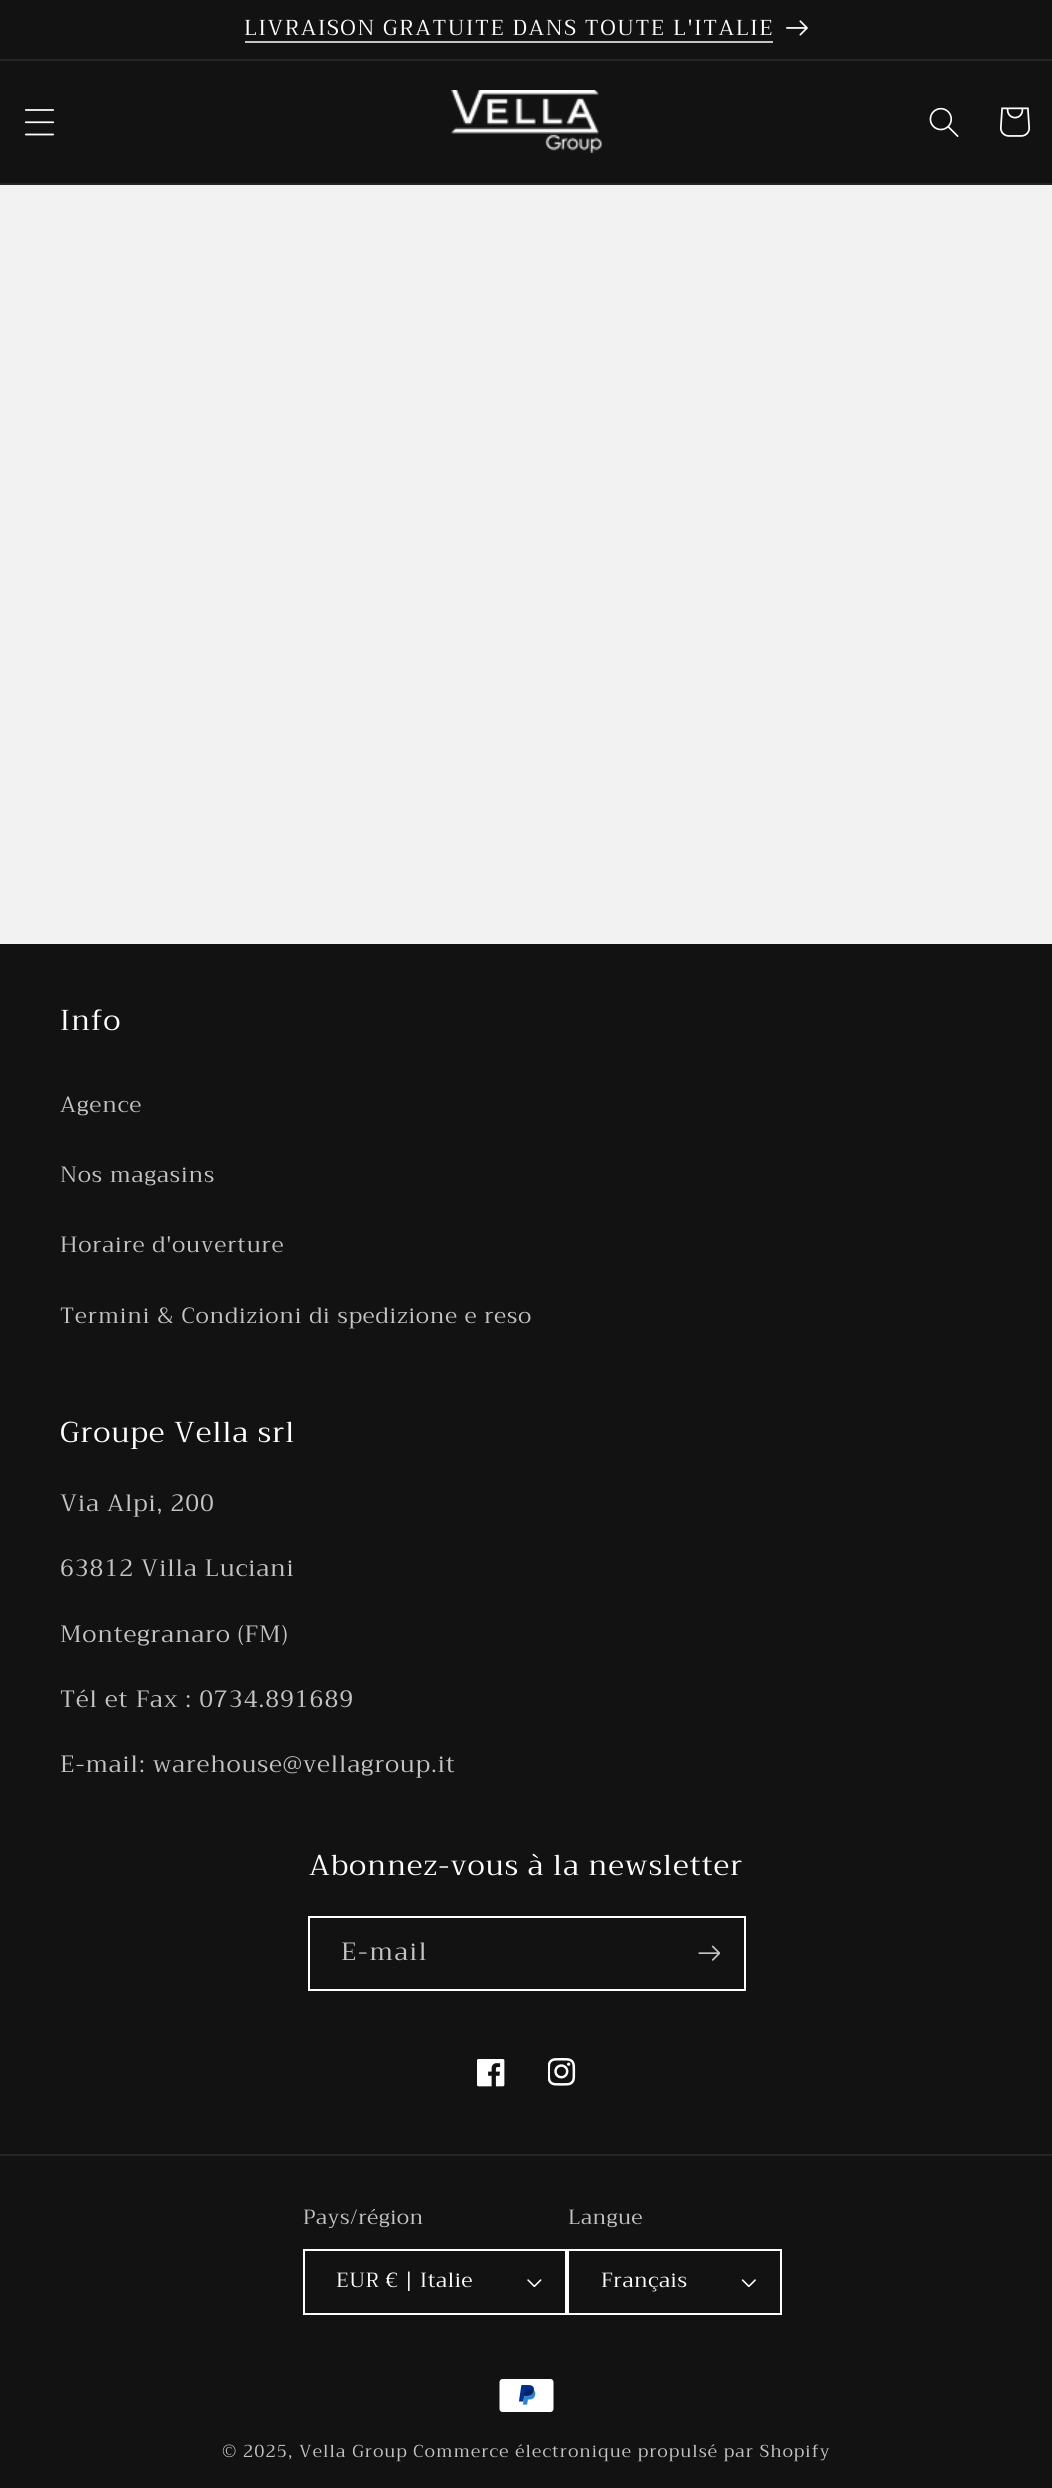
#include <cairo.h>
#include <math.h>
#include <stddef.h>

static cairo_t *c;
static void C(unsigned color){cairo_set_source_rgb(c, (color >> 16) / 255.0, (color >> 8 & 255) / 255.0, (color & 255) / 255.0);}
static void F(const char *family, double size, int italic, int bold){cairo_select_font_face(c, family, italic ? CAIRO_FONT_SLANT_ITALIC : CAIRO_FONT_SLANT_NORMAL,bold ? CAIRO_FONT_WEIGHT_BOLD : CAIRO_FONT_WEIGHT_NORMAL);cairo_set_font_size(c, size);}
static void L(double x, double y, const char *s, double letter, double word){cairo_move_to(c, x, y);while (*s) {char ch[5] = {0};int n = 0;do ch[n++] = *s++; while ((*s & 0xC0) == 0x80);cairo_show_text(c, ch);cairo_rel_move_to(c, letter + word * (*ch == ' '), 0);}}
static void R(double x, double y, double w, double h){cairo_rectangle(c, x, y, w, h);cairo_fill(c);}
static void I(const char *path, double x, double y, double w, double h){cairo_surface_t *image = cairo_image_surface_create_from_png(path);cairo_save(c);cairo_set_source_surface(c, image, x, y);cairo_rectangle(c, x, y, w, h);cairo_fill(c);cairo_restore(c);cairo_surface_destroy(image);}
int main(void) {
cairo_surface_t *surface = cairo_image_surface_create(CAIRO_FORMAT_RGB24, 1052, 2488);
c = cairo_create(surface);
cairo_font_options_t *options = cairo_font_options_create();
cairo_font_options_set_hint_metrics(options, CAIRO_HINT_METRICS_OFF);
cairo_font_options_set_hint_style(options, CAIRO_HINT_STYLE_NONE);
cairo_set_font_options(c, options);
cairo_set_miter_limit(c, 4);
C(0xf2f2f2);
cairo_paint(c);
C(0x121212);
R(0,0,1052,59);
C(0x252525);
R(0,59,1052,2);
F("Trirong",21.6,0,0);
C(0xffffff);
L(244,35,"LIVRAISON GRATUITE DANS TOUTE L'ITALIE",1.6,0);
C(0xc4c4c4);
R(245,41,528,2);
I("1.png",786,20,22,16);
C(0x121212);
R(0,61,1052,122);
C(0x252525);
R(0,183,1052,2);
I("2.png",24,109,31,27);
I("3.png",451,90,151,63);
I("4.png",929,107,30,30);
I("5.png",1000,107,31,30);
C(0x121212);
R(0,944,1052,1544);
F("Trirong",28.75,0,0);
C(0xffffff);
L(60,1030,"Info",1.1,0);
F("Trirong",22.05,0,0);
C(0xc4c4c4);
L(60,1112,"Agence",.95,0);
L(60,1182,"Nos magasins",.95,0);
L(60,1252,"Horaire d'ouverture",.95,0);
L(60,1323,"Termini & Condizioni di spedizione e reso",.95,0);
F("Trirong",28.75,0,0);
C(0xffffff);
L(60,1442,"Groupe Vella srl",1.1,0);
F("Trirong",23.6,0,0);
C(0xc4c4c4);
L(60,1511,"Via Alpi, 200",.95,0);
L(60,1576,"63812 Villa Luciani",.95,0);
L(60,1642,"Montegranaro (FM)",.95,0);
L(60,1707,"Tél et Fax : 0734.891689",.95,0);
L(60,1772,"E-mail: warehouse@vellagroup.it",.95,0);
F("Trirong",28.75,0,0);
C(0xffffff);
L(309,1875,"Abonnez-vous à la newsletter",1.1,0);
cairo_rectangle(c,309,1917,436,73);
cairo_stroke(c);
F("Trirong",25,0,0);
C(0xc4c4c4);
L(341,1960,"E-mail",1.6,0);
I("6.png",698,1945,22,16);
I("7.png",477,2059,28,28);
I("8.png",548,2058,28,28);
C(0x252525);
R(0,2154,1052,2);
F("Trirong",20.5,0,0);
C(0xc4c4c4);
L(303,2224,"Pays/région",.6,0);
I("9.png",527,2279,15,9);
cairo_rectangle(c,304,2250,262,64);
C(0xffffff);
cairo_stroke(c);
L(336,2287,"EUR € | Italie",.6,0);
C(0xc4c4c4);
L(568,2224,"Langue",.6,0);
I("10.png",741,2279,15,9);
cairo_rectangle(c,568,2250,213,64);
C(0xffffff);
cairo_stroke(c);
L(601,2287,"Français",.6,0);
I("11.png",499,2379,55,33);
F("Trirong",17.3,0,0);
C(0xc4c4c4);
L(222,2457,"© 2025, Vella Group",1.1,0);
L(413,2457,"Commerce électronique propulsé par Shopify",1.1,0);
cairo_surface_write_to_png(surface, "o.png");
cairo_font_options_destroy(options);
cairo_destroy(c);
cairo_surface_destroy(surface);
return 0;
}
